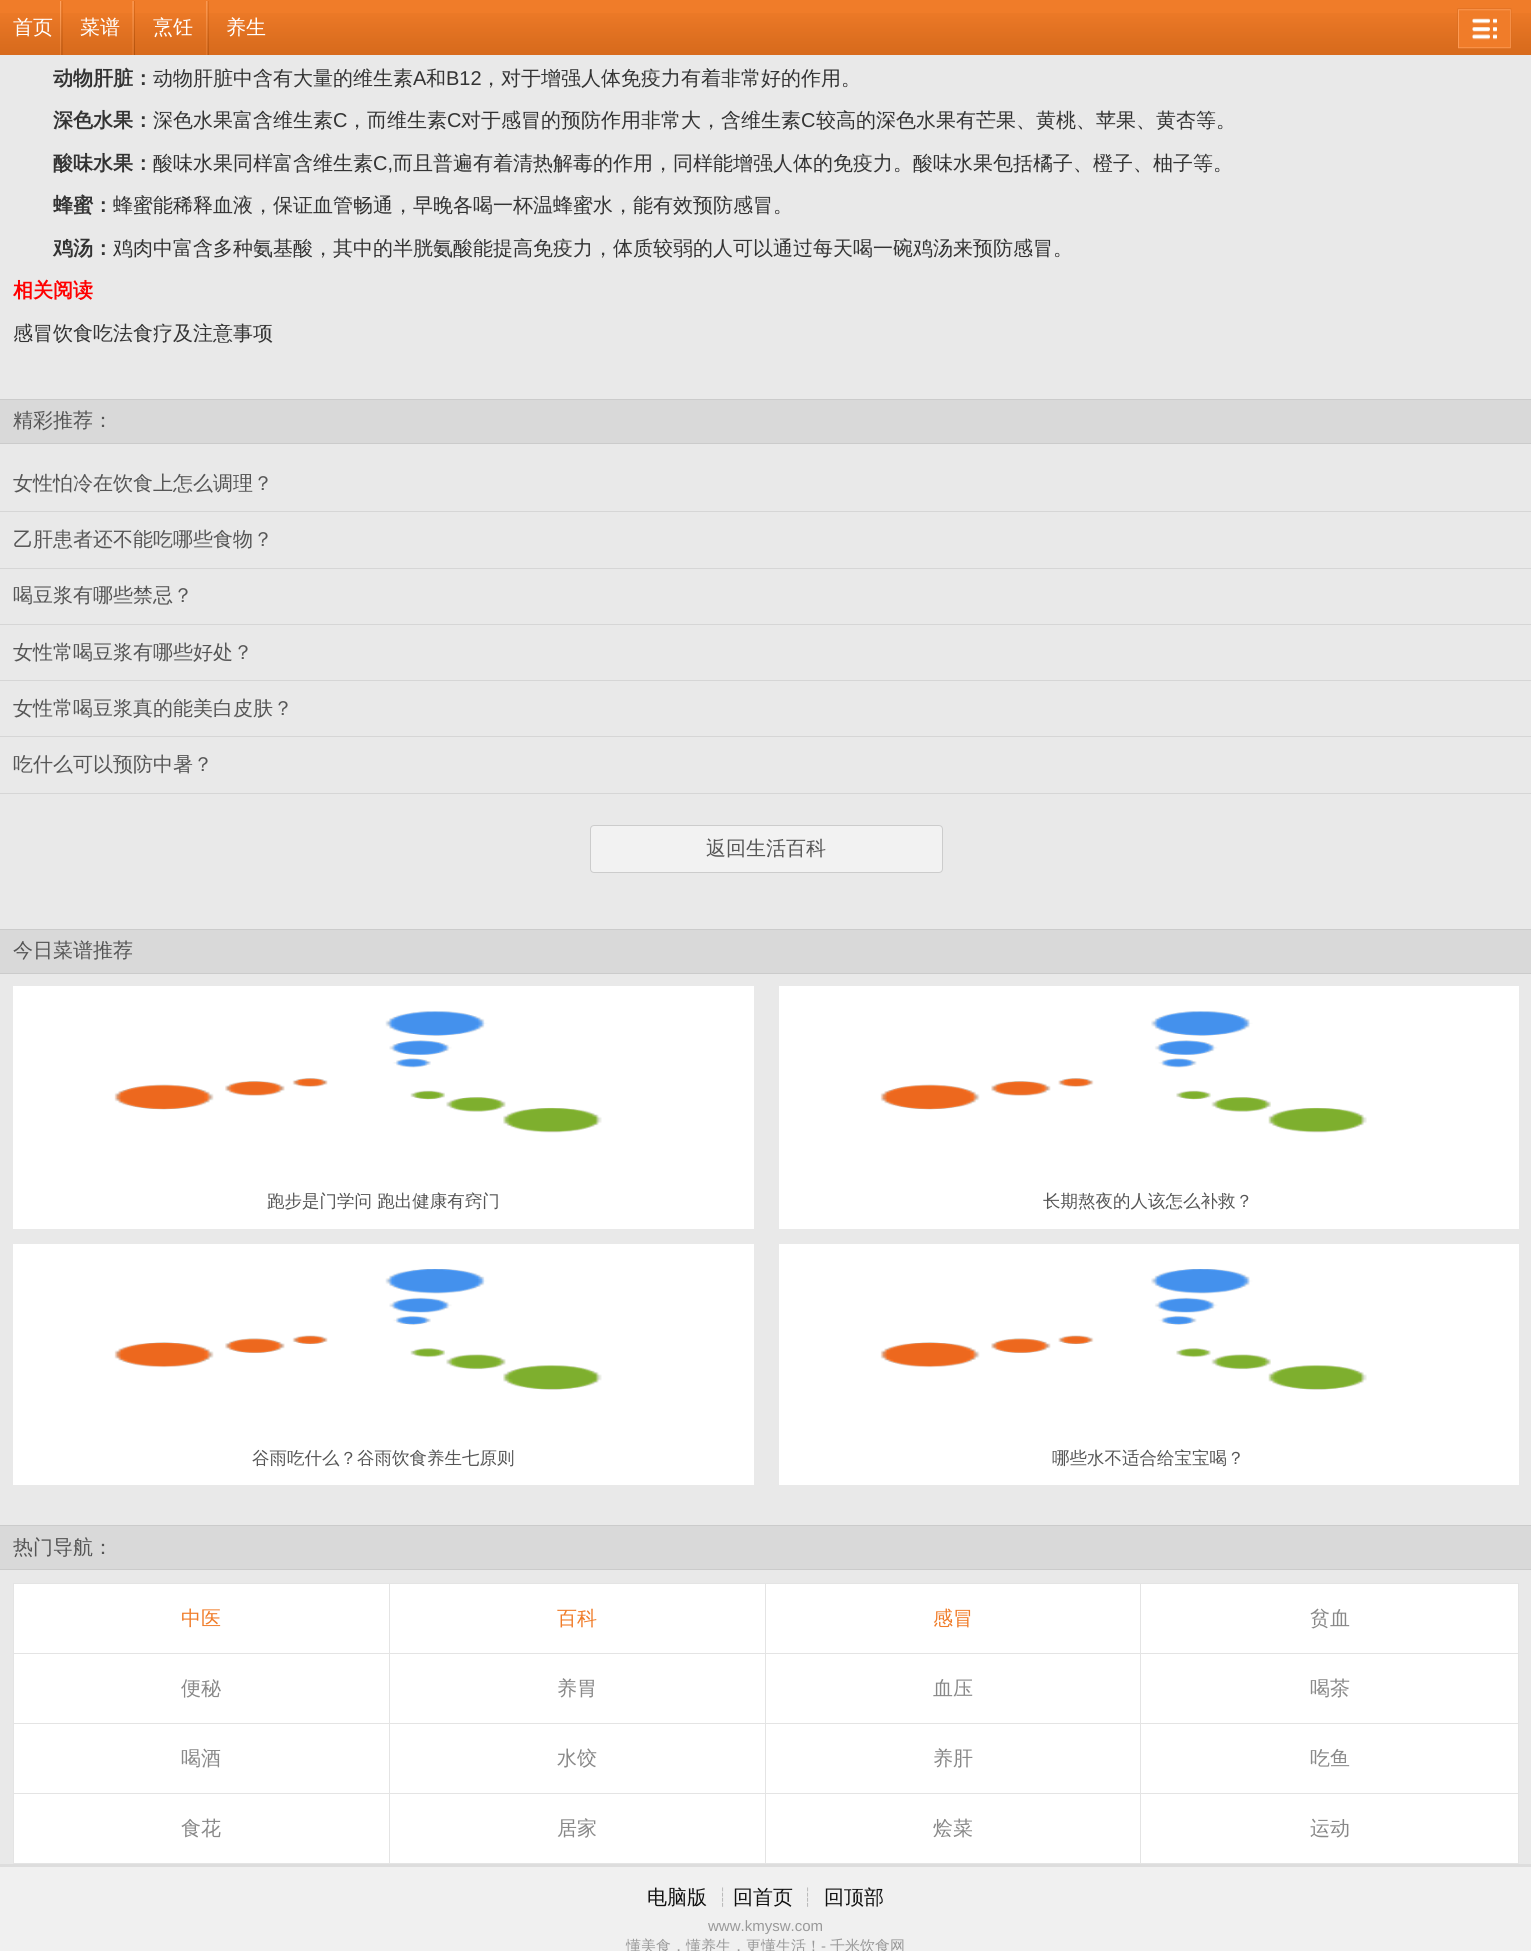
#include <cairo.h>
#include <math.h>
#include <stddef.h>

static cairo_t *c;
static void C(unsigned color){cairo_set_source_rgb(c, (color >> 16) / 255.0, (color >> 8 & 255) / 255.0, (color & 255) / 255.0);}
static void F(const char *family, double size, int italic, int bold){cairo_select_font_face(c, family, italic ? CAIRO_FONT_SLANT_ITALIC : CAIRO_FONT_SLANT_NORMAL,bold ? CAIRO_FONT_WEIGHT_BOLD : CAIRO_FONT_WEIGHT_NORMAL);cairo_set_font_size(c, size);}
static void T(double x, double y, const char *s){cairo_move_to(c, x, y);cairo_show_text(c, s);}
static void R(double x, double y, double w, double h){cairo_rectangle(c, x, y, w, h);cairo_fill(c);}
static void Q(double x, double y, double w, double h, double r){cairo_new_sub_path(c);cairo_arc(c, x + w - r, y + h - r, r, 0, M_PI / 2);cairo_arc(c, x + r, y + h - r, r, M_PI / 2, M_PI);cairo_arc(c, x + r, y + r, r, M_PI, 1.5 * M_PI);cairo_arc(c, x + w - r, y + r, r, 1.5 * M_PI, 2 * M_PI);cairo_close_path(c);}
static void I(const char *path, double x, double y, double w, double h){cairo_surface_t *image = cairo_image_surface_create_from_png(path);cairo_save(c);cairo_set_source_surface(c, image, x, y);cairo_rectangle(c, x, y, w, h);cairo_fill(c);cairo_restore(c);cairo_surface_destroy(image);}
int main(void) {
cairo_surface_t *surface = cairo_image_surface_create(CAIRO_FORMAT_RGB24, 1531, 1951);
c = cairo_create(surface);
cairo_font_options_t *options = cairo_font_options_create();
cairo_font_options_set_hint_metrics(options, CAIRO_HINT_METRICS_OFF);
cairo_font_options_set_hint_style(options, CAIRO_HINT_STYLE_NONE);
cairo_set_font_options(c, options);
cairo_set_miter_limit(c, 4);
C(0xe9e9e9);
cairo_paint(c);
C(0xf07c29);
R(0,0,1531,13);
I("1.png",0,13,1531,42);
F("WenQuanYi Zen Hei Medium",20,0,0);
C(0xffffff);
T(13,34,"首页");
I("2.png",60,1,3,54);
T(80,34,"菜谱");
I("3.png",132,1,3,54);
T(153,34,"烹饪");
I("4.png",206,1,3,54);
T(226,34,"养生");
I("5.png",1457,8,55,41);
F("WenQuanYi Zen Hei",20,0,1);
C(0x333333);
T(53,85,"动物肝脏：");
F("WenQuanYi Zen Hei Medium",20,0,0);
T(153,85,"动物肝脏中含有大量的维生素");
F("Liberation Sans",20,0,0);
T(413,85,"A");
F("WenQuanYi Zen Hei Medium",20,0,0);
T(426,85,"和");
F("Liberation Sans",20,0,0);
T(446,85,"B12");
F("WenQuanYi Zen Hei Medium",20,0,0);
T(481,85,"，对于增强人体免疫力有着非常好的作用。");
F("WenQuanYi Zen Hei",20,0,1);
T(53,127,"深色水果：");
F("WenQuanYi Zen Hei Medium",20,0,0);
T(153,127,"深色水果富含维生素");
F("Liberation Sans",20,0,0);
T(333,127,"C");
F("WenQuanYi Zen Hei Medium",20,0,0);
T(347,127,"，而维生素");
F("Liberation Sans",20,0,0);
T(447,127,"C");
F("WenQuanYi Zen Hei Medium",20,0,0);
T(461,127,"对于感冒的预防作用非常大，含维生素");
F("Liberation Sans",20,0,0);
T(801,127,"C");
F("WenQuanYi Zen Hei Medium",20,0,0);
T(816,127,"较高的深色水果有芒果、黄桃、苹果、黄杏等。");
F("WenQuanYi Zen Hei",20,0,1);
T(53,170,"酸味水果：");
F("WenQuanYi Zen Hei Medium",20,0,0);
T(153,170,"酸味水果同样富含维生素");
F("Liberation Sans",20,0,0);
T(373,170,"C,");
F("WenQuanYi Zen Hei Medium",20,0,0);
T(393,170,"而且普遍有着清热解毒的作用，同样能增强人体的免疫力。酸味水果包括橘子、橙子、柚子等。");
F("WenQuanYi Zen Hei",20,0,1);
T(53,212,"蜂蜜：");
F("WenQuanYi Zen Hei Medium",20,0,0);
T(113,212,"蜂蜜能稀释血液，保证血管畅通，早晚各喝一杯温蜂蜜水，能有效预防感冒。");
F("WenQuanYi Zen Hei",20,0,1);
T(53,255,"鸡汤：");
F("WenQuanYi Zen Hei Medium",20,0,0);
T(113,255,"鸡肉中富含多种氨基酸，其中的半胱氨酸能提高免疫力，体质较弱的人可以通过每天喝一碗鸡汤来预防感冒。");
F("WenQuanYi Zen Hei",20,0,1);
C(0xff0000);
T(13,297,"相关阅读");
F("WenQuanYi Zen Hei Medium",20,0,0);
C(0x333333);
T(13,340,"感冒饮食吃法食疗及注意事项");
C(0xd9d9d9);
R(0,400,1531,43);
C(0xcbcbcb);
R(0,399,1531,1);
R(0,443,1531,1);
C(0x555555);
T(13,427,"精彩推荐：");
C(0xd6d6d6);
R(0,511,1531,1);
C(0x555555);
T(13,490,"女性怕冷在饮食上怎么调理？");
C(0xd6d6d6);
R(0,568,1531,1);
C(0x555555);
T(13,546,"乙肝患者还不能吃哪些食物？");
C(0xd6d6d6);
R(0,624,1531,1);
C(0x555555);
T(13,602,"喝豆浆有哪些禁忌？");
C(0xd6d6d6);
R(0,680,1531,1);
C(0x555555);
T(13,659,"女性常喝豆浆有哪些好处？");
C(0xd6d6d6);
R(0,736,1531,1);
C(0x555555);
T(13,715,"女性常喝豆浆真的能美白皮肤？");
C(0xd6d6d6);
R(0,793,1531,1);
C(0x555555);
T(13,771,"吃什么可以预防中暑？");
C(0xf2f2f2);
Q(590.5,825.5,352,47,3.5);
cairo_fill_preserve(c);
C(0xcccccc);
cairo_set_line_width(c,1);
cairo_stroke(c);
C(0x555555);
T(706,855,"返回生活百科");
C(0xd9d9d9);
R(0,930,1531,43);
C(0xcbcbcb);
R(0,929,1531,1);
R(0,973,1531,1);
C(0x555555);
T(13,957,"今日菜谱推荐");
C(0xffffff);
R(13,986,741,243);
I("6.png",114,1011,488,122);
F("WenQuanYi Zen Hei Medium",17.5,0,0);
C(0x555555);
T(267,1207,"跑步是门学问 跑出健康有窍门");
C(0xffffff);
R(779,986,740,243);
I("7.png",880,1011,487,122);
C(0x555555);
T(1043,1207,"长期熬夜的人该怎么补救？");
C(0xffffff);
R(13,1244,741,241);
I("8.png",114,1269,488,121);
C(0x555555);
T(252,1464,"谷雨吃什么？谷雨饮食养生七原则");
C(0xffffff);
R(779,1244,740,241);
I("9.png",880,1269,487,121);
C(0x555555);
T(1052,1464,"哪些水不适合给宝宝喝？");
C(0xd9d9d9);
R(0,1526,1531,43);
C(0xcbcbcb);
R(0,1525,1531,1);
R(0,1569,1531,1);
F("WenQuanYi Zen Hei Medium",20,0,0);
C(0x555555);
T(13,1554,"热门导航：");
C(0xe4e4e4);
R(13,1583,1506,1);
R(1518,1583,1,281);
R(13,1583,1,281);
C(0xffffff);
R(14,1584,375,69);
C(0xe4e4e4);
R(389,1584,1,280);
R(14,1653,376,1);
C(0xf07c29);
T(181,1625,"中医");
C(0xffffff);
R(390,1584,375,69);
C(0xe4e4e4);
R(765,1584,1,280);
R(390,1653,376,1);
C(0xf07c29);
T(557,1625,"百科");
C(0xffffff);
R(766,1584,374,69);
C(0xe4e4e4);
R(1140,1584,1,280);
R(766,1653,752,1);
C(0xf07c29);
T(933,1625,"感冒");
C(0xffffff);
R(1141,1584,377,69);
C(0x888888);
T(1310,1625,"贫血");
C(0xffffff);
R(14,1654,375,69);
C(0xe4e4e4);
R(14,1723,1504,1);
C(0x888888);
T(181,1695,"便秘");
C(0xffffff);
R(390,1654,375,69);
C(0x888888);
T(557,1695,"养胃");
C(0xffffff);
R(766,1654,374,69);
C(0x888888);
T(933,1695,"血压");
C(0xffffff);
R(1141,1654,377,69);
C(0x888888);
T(1310,1695,"喝茶");
C(0xffffff);
R(14,1724,375,69);
C(0xe4e4e4);
R(14,1793,1504,1);
C(0x888888);
T(181,1765,"喝酒");
C(0xffffff);
R(390,1724,375,69);
C(0x888888);
T(557,1765,"水饺");
C(0xffffff);
R(766,1724,374,69);
C(0x888888);
T(933,1765,"养肝");
C(0xffffff);
R(1141,1724,377,69);
C(0x888888);
T(1310,1765,"吃鱼");
C(0xffffff);
R(14,1794,375,69);
C(0xe4e4e4);
R(14,1863,1504,1);
C(0x888888);
T(181,1835,"食花");
C(0xffffff);
R(390,1794,375,69);
C(0x888888);
T(557,1835,"居家");
C(0xffffff);
R(766,1794,374,69);
C(0x888888);
T(933,1835,"烩菜");
C(0xffffff);
R(1141,1794,377,69);
C(0x888888);
T(1310,1835,"运动");
C(0xf0f0f0);
R(0,1867,1531,84);
C(0xdddddd);
R(0,1864,1531,3);
C(0x111111);
T(647,1904,"电脑版");
C(0x999999);
T(713,1904,"┊");
C(0x111111);
T(733,1904,"回首页");
C(0x999999);
T(798,1904,"┊");
C(0x111111);
T(824,1904,"回顶部");
F("Liberation Sans",15,0,0);
C(0x999999);
T(708,1931,"www.kmysw.com");
F("WenQuanYi Zen Hei Medium",15,0,0);
T(626,1951,"懂美食，懂养生，更懂生活！");
F("Liberation Sans",15,0,0);
T(821,1951,"-");
F("WenQuanYi Zen Hei Medium",15,0,0);
T(830,1951,"千米饮食网");
cairo_surface_write_to_png(surface, "o.png");
cairo_font_options_destroy(options);
cairo_destroy(c);
cairo_surface_destroy(surface);
return 0;
}
